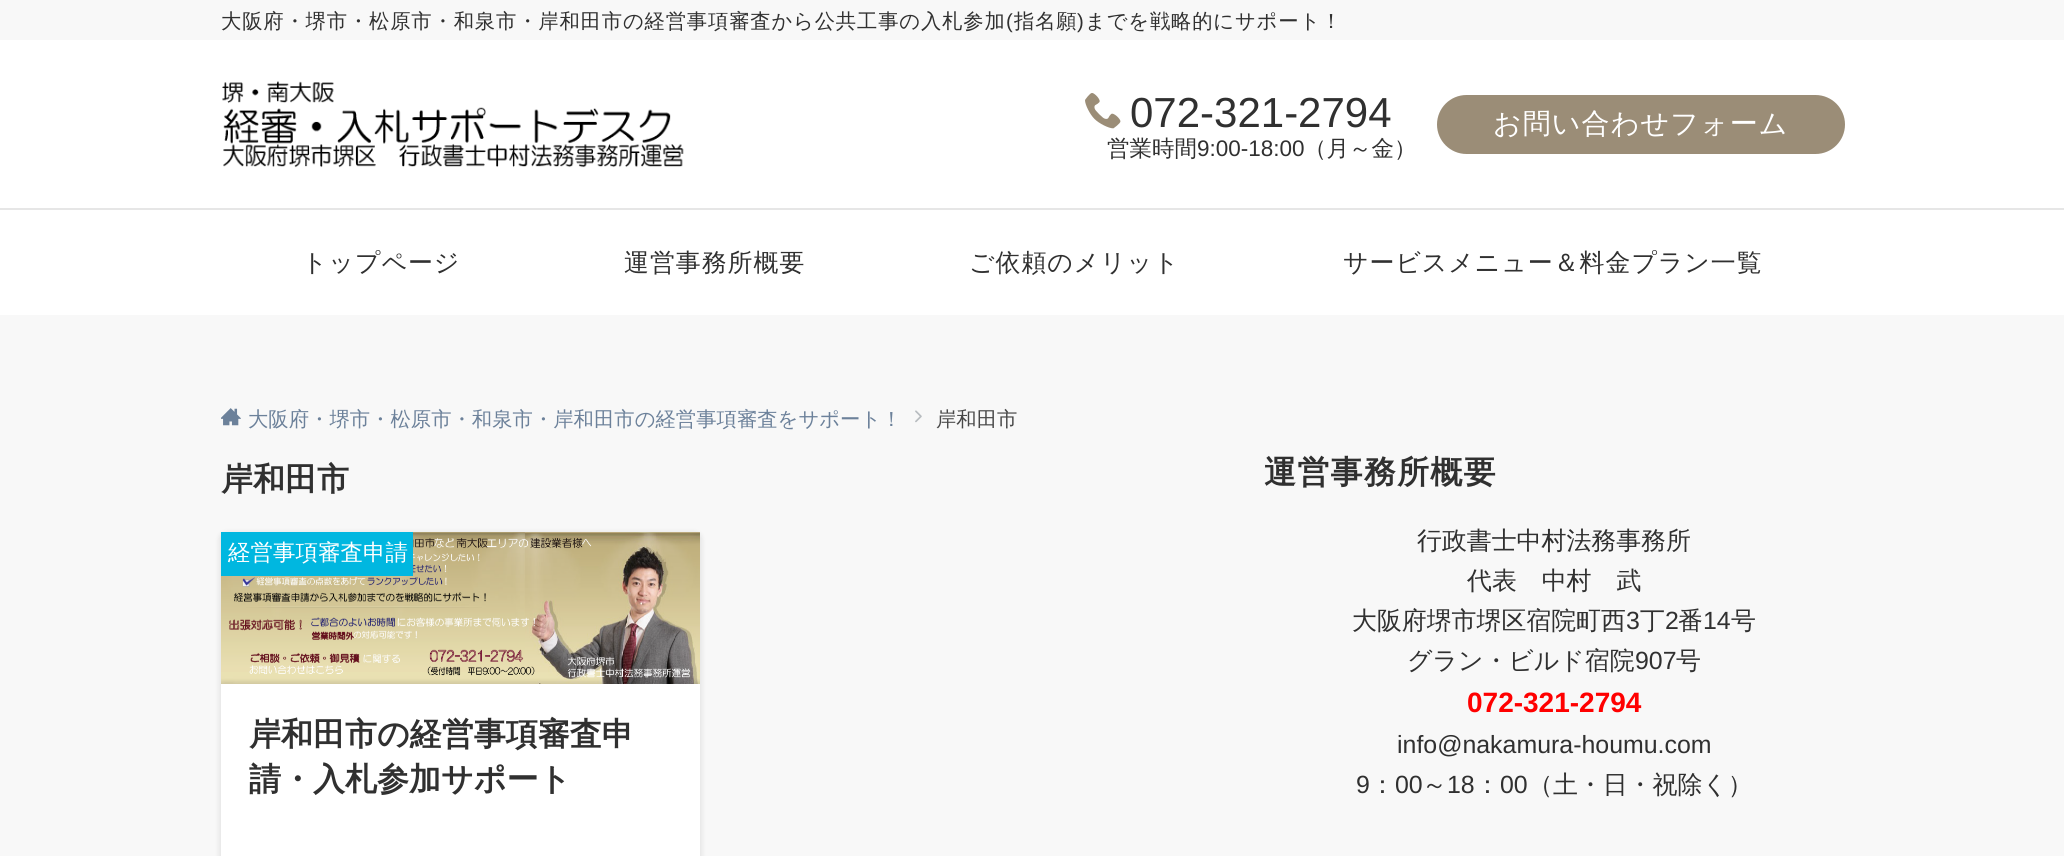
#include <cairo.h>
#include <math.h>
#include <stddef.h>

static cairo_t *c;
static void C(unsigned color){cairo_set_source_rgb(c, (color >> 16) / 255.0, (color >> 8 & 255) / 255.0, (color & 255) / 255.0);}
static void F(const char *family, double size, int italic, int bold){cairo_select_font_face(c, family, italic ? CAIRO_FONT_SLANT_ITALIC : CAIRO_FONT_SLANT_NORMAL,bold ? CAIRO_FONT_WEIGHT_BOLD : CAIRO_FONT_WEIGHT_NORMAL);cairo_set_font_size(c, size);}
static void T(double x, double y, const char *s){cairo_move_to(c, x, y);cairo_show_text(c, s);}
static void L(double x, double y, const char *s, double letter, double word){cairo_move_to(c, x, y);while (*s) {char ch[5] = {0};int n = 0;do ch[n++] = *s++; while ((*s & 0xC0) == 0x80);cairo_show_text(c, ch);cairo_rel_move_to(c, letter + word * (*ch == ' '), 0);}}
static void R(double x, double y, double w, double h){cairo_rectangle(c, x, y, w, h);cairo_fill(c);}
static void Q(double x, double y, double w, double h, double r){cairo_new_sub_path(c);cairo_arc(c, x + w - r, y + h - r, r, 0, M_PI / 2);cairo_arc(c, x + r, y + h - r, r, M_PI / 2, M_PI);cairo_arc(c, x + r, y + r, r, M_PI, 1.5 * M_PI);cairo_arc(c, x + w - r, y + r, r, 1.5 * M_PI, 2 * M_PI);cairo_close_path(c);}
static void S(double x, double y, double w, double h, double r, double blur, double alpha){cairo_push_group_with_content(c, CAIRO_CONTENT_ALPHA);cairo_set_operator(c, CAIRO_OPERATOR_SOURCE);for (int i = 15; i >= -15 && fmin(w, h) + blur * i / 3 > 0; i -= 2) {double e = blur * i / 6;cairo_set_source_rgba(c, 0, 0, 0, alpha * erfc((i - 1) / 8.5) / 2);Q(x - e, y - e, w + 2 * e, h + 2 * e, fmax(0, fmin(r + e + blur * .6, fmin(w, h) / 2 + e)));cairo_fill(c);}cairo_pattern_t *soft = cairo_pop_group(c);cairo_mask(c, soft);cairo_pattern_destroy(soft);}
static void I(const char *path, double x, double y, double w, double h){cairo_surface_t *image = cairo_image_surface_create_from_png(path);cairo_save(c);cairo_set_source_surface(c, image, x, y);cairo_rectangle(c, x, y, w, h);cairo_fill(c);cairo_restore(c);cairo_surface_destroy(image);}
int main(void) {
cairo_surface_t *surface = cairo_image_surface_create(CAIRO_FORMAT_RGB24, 2064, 856);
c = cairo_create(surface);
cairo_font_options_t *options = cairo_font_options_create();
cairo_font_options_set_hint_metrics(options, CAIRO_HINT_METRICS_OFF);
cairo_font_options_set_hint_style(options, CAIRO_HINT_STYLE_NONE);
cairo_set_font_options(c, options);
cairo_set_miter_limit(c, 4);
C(0xf8f8f8);
cairo_paint(c);
F("WenQuanYi Zen Hei Medium",20.35,0,0);
C(0x303030);
L(221,28,"大阪府・堺市・松原市・和泉市・岸和田市の経営事項審査から公共工事の入札参加",.8,0);
F("Liberation Sans",20.35,0,0);
L(1006,28,"(",.8,0);
F("WenQuanYi Zen Hei Medium",20.35,0,0);
L(1014,28,"指名願",.8,0);
F("Liberation Sans",20.35,0,0);
L(1077,28,")",.8,0);
F("WenQuanYi Zen Hei Medium",20.35,0,0);
L(1085,28,"までを戦略的にサポート！",.8,0);
C(0xffffff);
R(0,40,2064,168);
C(0xe6e6e6);
R(0,208,2064,2);
I("1.png",222,81,462,87);
I("2.png",1085,93,36,36);
F("Liberation Sans",42,0,0);
C(0x303030);
T(1130,127,"072-321-2794");
F("WenQuanYi Zen Hei Medium",22.5,0,0);
T(1107,156,"営業時間");
F("Liberation Sans",22.5,0,0);
T(1197,156,"9:00-18:00");
F("WenQuanYi Zen Hei Medium",22.5,0,0);
T(1304,156,"（月～金）");
C(0x9b8d77);
Q(1437,95,408,59,29.5);
cairo_fill(c);
F("WenQuanYi Zen Hei Medium",28,0,0);
C(0xffffff);
L(1493,133,"お問い合わせフォーム",1.1,0);
R(0,210,2064,105);
F("WenQuanYi Zen Hei Medium",24.9,0,0);
C(0x303030);
L(302,271,"トップページ",1,0);
L(624,271,"運営事務所概要",1,0);
L(969,271,"ご依頼のメリット",1,0);
L(1343,271,"サービスメニュー＆料金プラン一覧",1,0);
I("3.png",221,408,20,18);
F("WenQuanYi Zen Hei Medium",20.35,0,0);
C(0x6c819a);
T(248,426,"大阪府・堺市・松原市・和泉市・岸和田市の経営事項審査をサポート！");
I("4.png",915,410,7,13);
C(0x484848);
T(936,426,"岸和田市");
F("WenQuanYi Zen Hei",32,0,1);
C(0x303030);
T(221,490,"岸和田市");
C(0x000000);
S(219,532,483,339,7,2.5,.08);
C(0xffffff);
R(221,684,479,172);
I("5.png",221,532,479,152);
C(0x00b7e0);
R(221,532,192,44);
F("WenQuanYi Zen Hei Medium",22.5,0,0);
C(0xffffff);
T(228,560,"経営事項審査申請");
F("WenQuanYi Zen Hei",32,0,1);
C(0x303030);
T(249,745,"岸和田市の経営事項審査申");
T(249,790,"請・入札参加サポート");
L(1264,483,"運営事務所概要",1.25,0);
F("WenQuanYi Zen Hei Medium",24.9,0,0);
T(1417,549,"行政書士中村法務事務所");
T(1467,589,"代表　中村　武");
T(1352,629,"大阪府堺市堺区宿院町西");
F("Liberation Sans",24.9,0,0);
T(1626,629,"3");
F("WenQuanYi Zen Hei Medium",24.9,0,0);
T(1640,629,"丁");
F("Liberation Sans",24.9,0,0);
T(1665,629,"2");
F("WenQuanYi Zen Hei Medium",24.9,0,0);
T(1678,629,"番");
F("Liberation Sans",24.9,0,0);
T(1703,629,"14");
F("WenQuanYi Zen Hei Medium",24.9,0,0);
T(1731,629,"号");
T(1407,669,"グラン・ビルド宿院");
F("Liberation Sans",24.9,0,0);
T(1635,669,"907");
F("WenQuanYi Zen Hei Medium",24.9,0,0);
T(1676,669,"号");
F("Liberation Sans",28,0,1);
C(0xff0000);
T(1467,712,"072‐321‐2794");
F("Liberation Sans",24.9,0,0);
C(0x303030);
T(1397,753,"info@nakamura-houmu.com");
T(1356,793,"9");
F("WenQuanYi Zen Hei Medium",24.9,0,0);
T(1370,793,"：");
F("Liberation Sans",24.9,0,0);
T(1395,793,"00");
F("WenQuanYi Zen Hei Medium",24.9,0,0);
T(1422,793,"～");
F("Liberation Sans",24.9,0,0);
T(1447,793,"18");
F("WenQuanYi Zen Hei Medium",24.9,0,0);
T(1475,793,"：");
F("Liberation Sans",24.9,0,0);
T(1500,793,"00");
F("WenQuanYi Zen Hei Medium",24.9,0,0);
T(1528,793,"（土・日・祝除く）");
cairo_surface_write_to_png(surface, "o.png");
cairo_font_options_destroy(options);
cairo_destroy(c);
cairo_surface_destroy(surface);
return 0;
}
